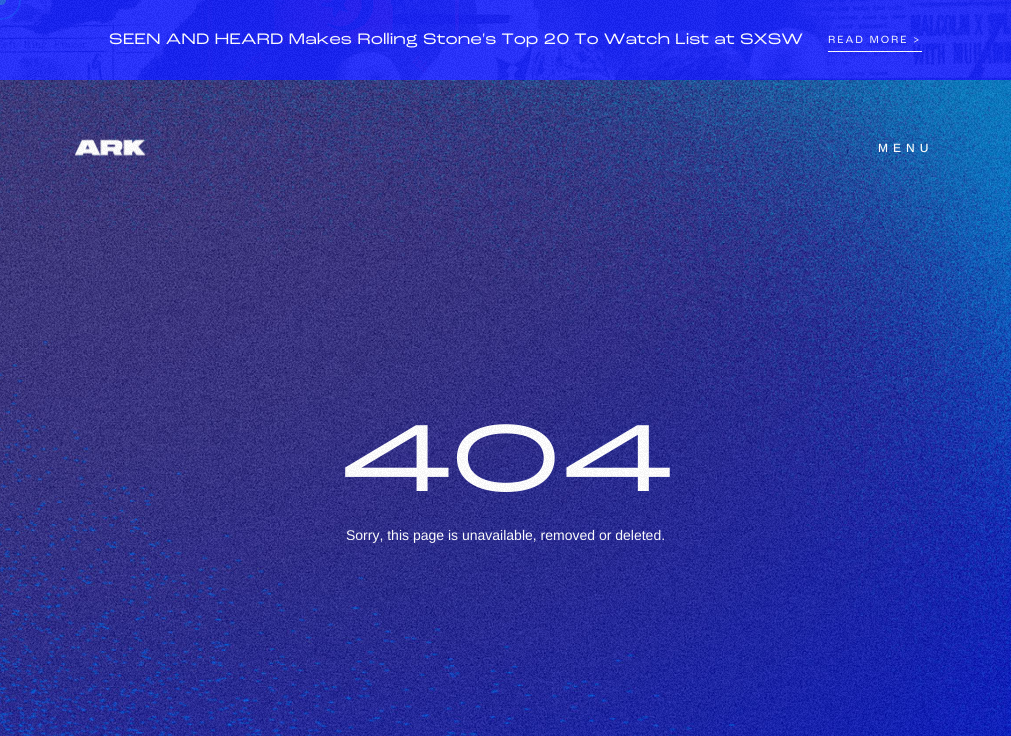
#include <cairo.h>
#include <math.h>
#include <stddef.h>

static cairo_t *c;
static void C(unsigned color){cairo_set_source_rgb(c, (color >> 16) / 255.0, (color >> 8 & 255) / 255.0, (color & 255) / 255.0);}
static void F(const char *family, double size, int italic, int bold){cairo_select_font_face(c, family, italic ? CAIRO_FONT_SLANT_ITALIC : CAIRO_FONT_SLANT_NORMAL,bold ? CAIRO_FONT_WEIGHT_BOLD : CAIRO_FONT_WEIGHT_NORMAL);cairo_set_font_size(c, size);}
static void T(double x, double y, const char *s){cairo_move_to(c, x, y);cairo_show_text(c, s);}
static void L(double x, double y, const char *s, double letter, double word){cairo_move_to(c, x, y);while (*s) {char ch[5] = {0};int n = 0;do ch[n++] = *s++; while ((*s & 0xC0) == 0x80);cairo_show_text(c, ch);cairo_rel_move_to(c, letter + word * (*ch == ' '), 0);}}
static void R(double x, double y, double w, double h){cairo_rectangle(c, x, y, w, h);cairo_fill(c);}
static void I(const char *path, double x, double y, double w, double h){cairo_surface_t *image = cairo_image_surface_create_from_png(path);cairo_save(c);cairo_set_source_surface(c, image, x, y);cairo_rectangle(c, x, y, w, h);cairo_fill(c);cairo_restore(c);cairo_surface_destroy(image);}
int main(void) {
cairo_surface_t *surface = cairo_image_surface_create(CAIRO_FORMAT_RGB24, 1011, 736);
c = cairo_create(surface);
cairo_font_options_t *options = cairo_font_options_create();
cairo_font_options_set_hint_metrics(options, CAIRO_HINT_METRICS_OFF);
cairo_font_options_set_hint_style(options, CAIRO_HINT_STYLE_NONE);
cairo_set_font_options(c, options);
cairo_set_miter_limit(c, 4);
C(0xffffff);
cairo_paint(c);
I("2.png",0,0,1011,80);
C(0x2861de);
cairo_arc(c,1,0,5,0,2 * M_PI);
cairo_fill(c);
cairo_arc(c,1,0,19,0,2 * M_PI);
cairo_set_source_rgba(c,0,0.565,1,0.23);
cairo_stroke(c);
F("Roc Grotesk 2",16,0,0);
C(0xffffff);
T(109,44,"SEEN AND HEARD Makes Rolling Stone's Top 20 To Watch List at SXSW");
R(828,51,94,1);
F("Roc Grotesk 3",11,0,0);
L(828,43,"READ MORE >",2,0);
I("4.png",0,80,1011,656);
I("3.png",74,139,72,17);
F("Arimo Medium",12,0,0);
L(878,152,"MENU",5,0);
F("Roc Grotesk",100,0,0);
T(340,491,"404");
F("Liberation Sans",14,0,0);
T(346,540,"Sorry, this page is unavailable, removed or deleted.");
I("1.png",0,0,1011,736);
cairo_surface_write_to_png(surface, "o.png");
cairo_font_options_destroy(options);
cairo_destroy(c);
cairo_surface_destroy(surface);
return 0;
}
